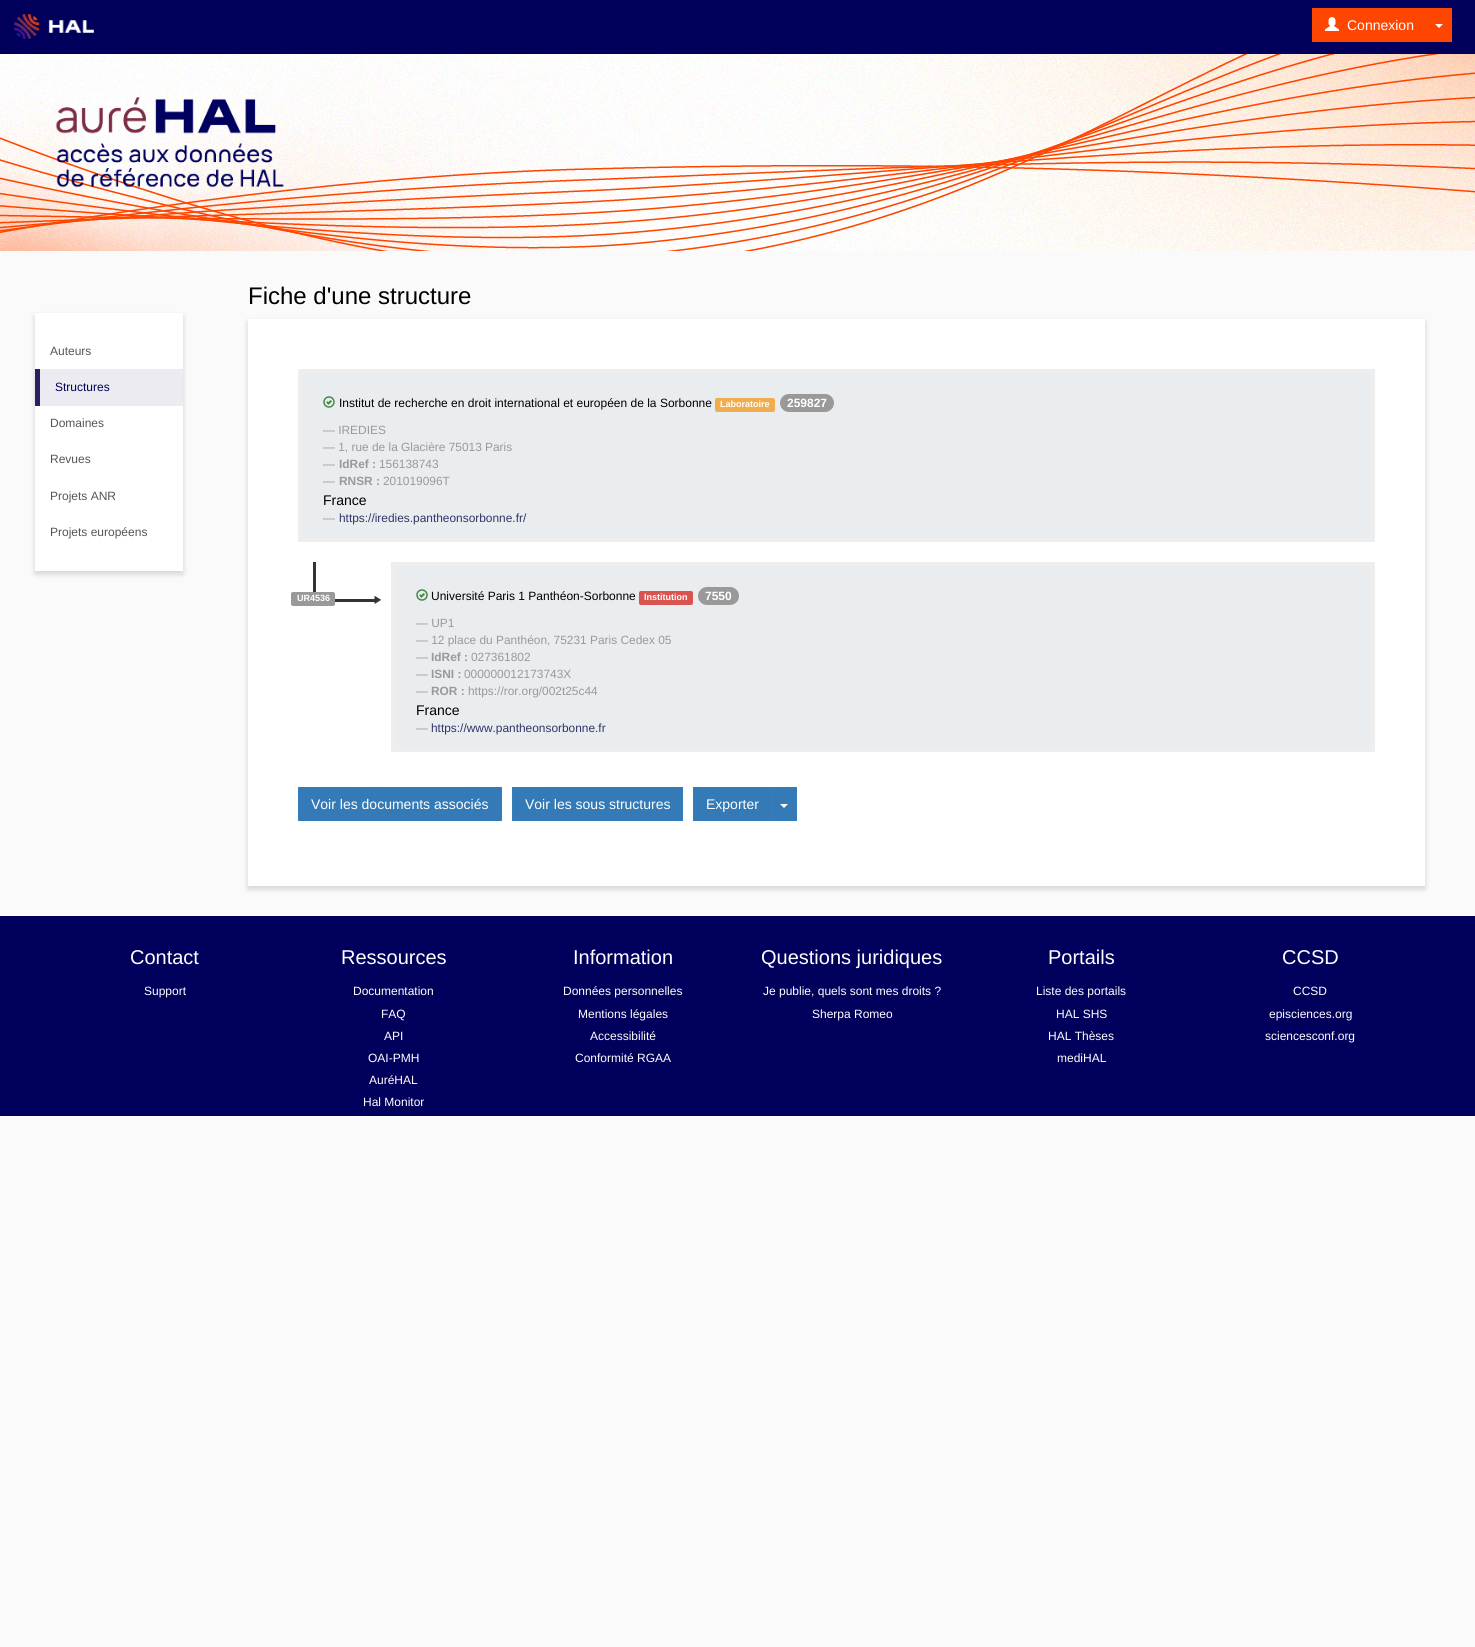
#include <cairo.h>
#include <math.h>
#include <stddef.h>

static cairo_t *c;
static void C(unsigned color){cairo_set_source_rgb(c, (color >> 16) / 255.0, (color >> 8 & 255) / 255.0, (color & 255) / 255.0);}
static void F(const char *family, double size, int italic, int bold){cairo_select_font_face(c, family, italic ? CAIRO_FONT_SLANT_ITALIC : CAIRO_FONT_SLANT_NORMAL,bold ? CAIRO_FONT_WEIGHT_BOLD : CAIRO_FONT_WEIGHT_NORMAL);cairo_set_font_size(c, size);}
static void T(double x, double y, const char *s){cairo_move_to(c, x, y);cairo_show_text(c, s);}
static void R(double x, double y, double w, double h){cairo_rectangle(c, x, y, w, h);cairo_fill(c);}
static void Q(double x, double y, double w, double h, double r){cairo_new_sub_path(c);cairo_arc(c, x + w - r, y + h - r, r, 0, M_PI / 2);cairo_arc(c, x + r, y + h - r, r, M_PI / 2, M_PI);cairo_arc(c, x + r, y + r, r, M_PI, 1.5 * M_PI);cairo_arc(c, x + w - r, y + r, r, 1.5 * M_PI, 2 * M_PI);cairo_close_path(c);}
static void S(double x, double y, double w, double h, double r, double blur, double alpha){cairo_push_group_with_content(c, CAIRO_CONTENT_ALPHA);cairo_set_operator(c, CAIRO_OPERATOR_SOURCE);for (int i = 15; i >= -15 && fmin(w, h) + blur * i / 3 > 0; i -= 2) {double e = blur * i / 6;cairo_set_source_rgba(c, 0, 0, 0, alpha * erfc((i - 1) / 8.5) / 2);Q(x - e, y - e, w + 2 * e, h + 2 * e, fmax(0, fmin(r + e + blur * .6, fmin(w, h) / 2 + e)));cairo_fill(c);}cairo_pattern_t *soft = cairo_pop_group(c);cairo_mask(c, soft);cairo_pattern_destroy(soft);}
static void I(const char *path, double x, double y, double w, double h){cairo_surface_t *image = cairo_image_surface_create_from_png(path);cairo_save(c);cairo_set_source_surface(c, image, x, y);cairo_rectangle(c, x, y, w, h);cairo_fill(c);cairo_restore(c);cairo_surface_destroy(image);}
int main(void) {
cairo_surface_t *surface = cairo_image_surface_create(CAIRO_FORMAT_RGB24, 1475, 1647);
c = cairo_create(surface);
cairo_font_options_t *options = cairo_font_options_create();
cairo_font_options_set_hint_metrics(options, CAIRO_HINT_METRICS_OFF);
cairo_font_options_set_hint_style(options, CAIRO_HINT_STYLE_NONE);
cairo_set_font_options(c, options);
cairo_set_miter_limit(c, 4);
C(0xfafafa);
cairo_paint(c);
I("1.png",0,54,1475,197);
C(0x080808);
R(0,53,1475,1);
C(0x00005c);
R(0,0,1475,53);
I("2.png",14,14,80,25);
C(0xff4600);
R(1312,8,140,34);
I("3.png",1325,17,14,14);
F("Liberation Sans",14,0,0);
C(0xffffff);
T(1347,30,"Connexion");
cairo_new_path(c);
cairo_move_to(c,1435,24);
cairo_line_to(c,1443,24);
cairo_line_to(c,1439,28);
cairo_close_path(c);
cairo_fill(c);
I("4.png",55,97,229,91);
C(0x000000);
S(35,316,148,258,0,3,.16);
C(0xffffff);
R(35,313,148,258);
F("Liberation Sans",12,0,0);
C(0x555555);
T(50,355,"Auteurs");
C(0xecebf1);
R(40,369,143,37);
C(0x292063);
R(35,369,5,37);
C(0x00005c);
T(55,391,"Structures");
C(0x555555);
T(50,427,"Domaines");
T(50,463,"Revues");
T(50,500,"Projets ANR");
T(50,536,"Projets européens");
F("Liberation Sans",24,0,0);
C(0x000000);
T(248,304,"Fiche d'une structure");
C(0x000000);
S(248,322,1177,567,0,3,.16);
C(0xffffff);
R(248,319,1177,567);
C(0xe9edf0);
cairo_rectangle(c,300.5,371.5,1072,168);
cairo_fill_preserve(c);
C(0xeeeeee);
cairo_set_line_width(c,5);
cairo_stroke(c);
I("5.png",323,396,12,12);
F("Liberation Sans",12,0,0);
C(0x000000);
T(339,407,"Institut de recherche en droit international et européen de la Sorbonne");
C(0xf0ad4e);
Q(715,398,60,14,2);
cairo_fill(c);
F("Liberation Sans",9,0,1);
C(0xffffff);
T(720,407,"Laboratoire");
C(0x999999);
Q(780,394,54,18,9);
cairo_fill(c);
F("Liberation Sans",12,0,1);
C(0xffffff);
T(787,407,"259827");
F("Liberation Sans",11.9,0,0);
C(0x999999);
T(323,434,"— IREDIES");
T(323,451,"— 1, rue de la Glacière 75013 Paris");
T(323,468,"—");
F("Liberation Sans",11.9,0,1);
T(339,468,"IdRef :");
F("Liberation Sans",11.9,0,0);
T(379,468,"156138743");
T(323,485,"—");
F("Liberation Sans",11.9,0,1);
T(339,485,"RNSR :");
F("Liberation Sans",11.9,0,0);
T(383,485,"201019096T");
F("Liberation Sans",14,0,0);
C(0x000000);
T(323,505,"France");
F("Liberation Sans",11.9,0,0);
C(0x999999);
T(323,522,"—");
C(0x333366);
T(339,522,"https://iredies.pantheonsorbonne.fr/");
C(0x333333);
R(313,562,3,30);
R(335,599,41,3);
C(0x999999);
Q(291,592,44,14,2);
cairo_fill(c);
F("Liberation Sans",9,0,1);
C(0xffffff);
T(297,601,"UR4536");
I("6.png",374,596,7,8);
C(0xe9edf0);
cairo_rectangle(c,393.5,564.5,979,185);
cairo_fill_preserve(c);
C(0xeeeeee);
cairo_stroke(c);
I("5.png",416,589,12,12);
F("Liberation Sans",12,0,0);
C(0x000000);
T(431,600,"Université Paris 1 Panthéon-Sorbonne");
C(0xd9534f);
Q(639,591,54,14,2);
cairo_fill(c);
F("Liberation Sans",9,0,1);
C(0xffffff);
T(644,600,"Institution");
C(0x999999);
Q(698,587,41,18,9);
cairo_fill(c);
F("Liberation Sans",12,0,1);
C(0xffffff);
T(705,600,"7550");
F("Liberation Sans",11.9,0,0);
C(0x999999);
T(416,627,"— UP1");
T(416,644,"— 12 place du Panthéon, 75231 Paris Cedex 05");
T(416,661,"—");
F("Liberation Sans",11.9,0,1);
T(431,661,"IdRef :");
F("Liberation Sans",11.9,0,0);
T(471,661,"027361802");
T(416,678,"—");
F("Liberation Sans",11.9,0,1);
T(431,678,"ISNI :");
F("Liberation Sans",11.9,0,0);
T(464,678,"000000012173743X");
T(416,695,"—");
F("Liberation Sans",11.9,0,1);
T(431,695,"ROR :");
F("Liberation Sans",11.9,0,0);
T(468,695,"https://ror.org/002t25c44");
F("Liberation Sans",14,0,0);
C(0x000000);
T(416,715,"France");
F("Liberation Sans",11.9,0,0);
C(0x999999);
T(416,732,"—");
C(0x333366);
T(431,732,"https://www.pantheonsorbonne.fr");
C(0x337ab7);
cairo_rectangle(c,298.5,787.5,203,33);
cairo_fill_preserve(c);
C(0x357ebd);
cairo_set_line_width(c,1);
cairo_stroke(c);
F("Liberation Sans",14,0,0);
C(0xffffff);
T(311,809,"Voir les documents associés");
C(0x337ab7);
cairo_rectangle(c,512.5,787.5,170,33);
cairo_fill_preserve(c);
C(0x357ebd);
cairo_stroke(c);
C(0xffffff);
T(525,809,"Voir les sous structures");
C(0x337ab7);
cairo_rectangle(c,693.5,787.5,78,33);
cairo_fill_preserve(c);
C(0x357ebd);
cairo_stroke(c);
C(0xffffff);
T(706,809,"Exporter");
C(0x337ab7);
cairo_rectangle(c,771.5,787.5,25,33);
cairo_fill_preserve(c);
C(0x357ebd);
cairo_stroke(c);
C(0xffffff);
cairo_new_path(c);
cairo_move_to(c,780,804);
cairo_line_to(c,788,804);
cairo_line_to(c,784,808);
cairo_close_path(c);
cairo_fill(c);
C(0x00005c);
R(0,916,1475,200);
F("Liberation Sans",20,0,0);
C(0xffffff);
T(130,964,"Contact");
F("Liberation Sans",12,0,0);
T(144,995,"Support");
F("Liberation Sans",20,0,0);
T(341,964,"Ressources");
F("Liberation Sans",12,0,0);
T(353,995,"Documentation");
T(381,1018,"FAQ");
T(384,1040,"API");
T(368,1062,"OAI-PMH");
T(369,1084,"AuréHAL");
T(363,1106,"Hal Monitor");
F("Liberation Sans",20,0,0);
T(573,964,"Information");
F("Liberation Sans",12,0,0);
T(563,995,"Données personnelles");
T(578,1018,"Mentions légales");
T(590,1040,"Accessibilité");
T(575,1062,"Conformité RGAA");
F("Liberation Sans",20,0,0);
T(761,964,"Questions juridiques");
F("Liberation Sans",12,0,0);
T(763,995,"Je publie, quels sont mes droits ?");
T(812,1018,"Sherpa Romeo");
F("Liberation Sans",20,0,0);
T(1048,964,"Portails");
F("Liberation Sans",12,0,0);
T(1036,995,"Liste des portails");
T(1056,1018,"HAL SHS");
T(1048,1040,"HAL Thèses");
T(1057,1062,"mediHAL");
F("Liberation Sans",20,0,0);
T(1282,964,"CCSD");
F("Liberation Sans",12,0,0);
T(1293,995,"CCSD");
T(1269,1018,"episciences.org");
T(1265,1040,"sciencesconf.org");
cairo_surface_write_to_png(surface, "o.png");
cairo_font_options_destroy(options);
cairo_destroy(c);
cairo_surface_destroy(surface);
return 0;
}
